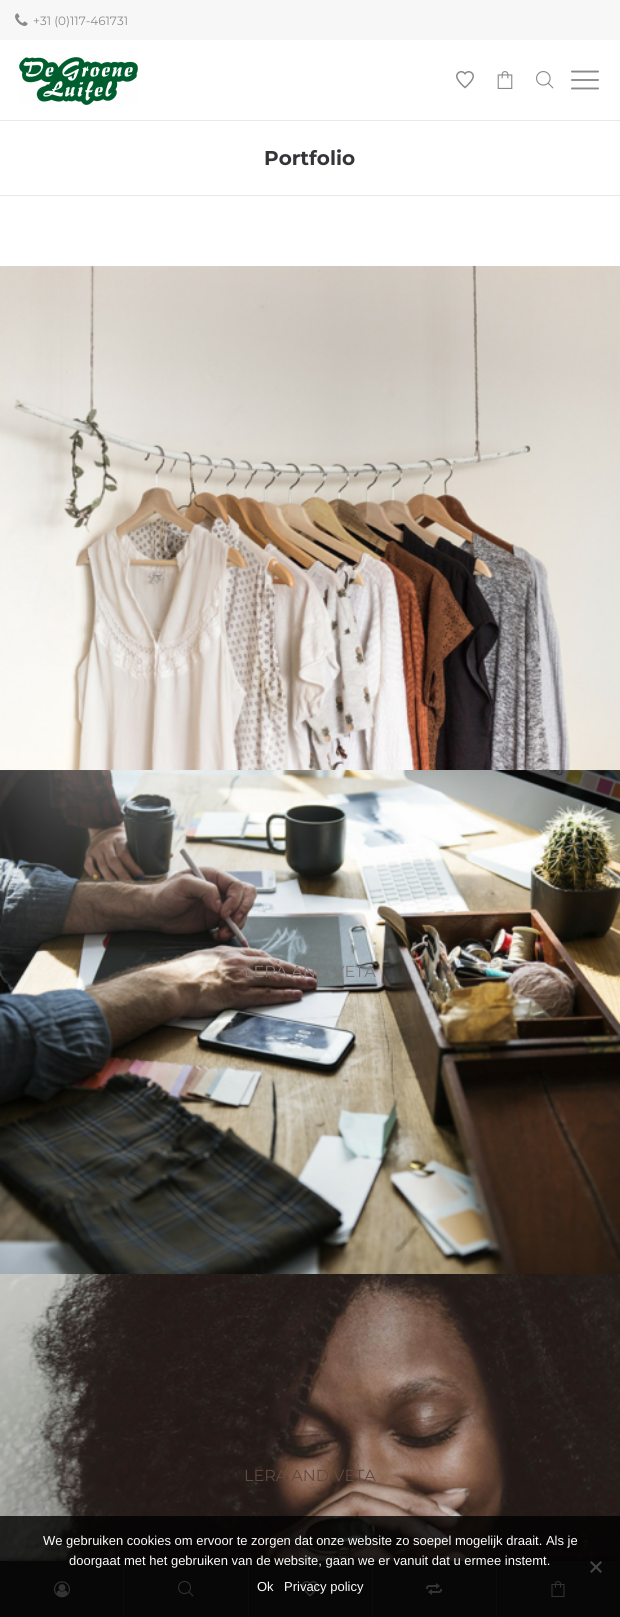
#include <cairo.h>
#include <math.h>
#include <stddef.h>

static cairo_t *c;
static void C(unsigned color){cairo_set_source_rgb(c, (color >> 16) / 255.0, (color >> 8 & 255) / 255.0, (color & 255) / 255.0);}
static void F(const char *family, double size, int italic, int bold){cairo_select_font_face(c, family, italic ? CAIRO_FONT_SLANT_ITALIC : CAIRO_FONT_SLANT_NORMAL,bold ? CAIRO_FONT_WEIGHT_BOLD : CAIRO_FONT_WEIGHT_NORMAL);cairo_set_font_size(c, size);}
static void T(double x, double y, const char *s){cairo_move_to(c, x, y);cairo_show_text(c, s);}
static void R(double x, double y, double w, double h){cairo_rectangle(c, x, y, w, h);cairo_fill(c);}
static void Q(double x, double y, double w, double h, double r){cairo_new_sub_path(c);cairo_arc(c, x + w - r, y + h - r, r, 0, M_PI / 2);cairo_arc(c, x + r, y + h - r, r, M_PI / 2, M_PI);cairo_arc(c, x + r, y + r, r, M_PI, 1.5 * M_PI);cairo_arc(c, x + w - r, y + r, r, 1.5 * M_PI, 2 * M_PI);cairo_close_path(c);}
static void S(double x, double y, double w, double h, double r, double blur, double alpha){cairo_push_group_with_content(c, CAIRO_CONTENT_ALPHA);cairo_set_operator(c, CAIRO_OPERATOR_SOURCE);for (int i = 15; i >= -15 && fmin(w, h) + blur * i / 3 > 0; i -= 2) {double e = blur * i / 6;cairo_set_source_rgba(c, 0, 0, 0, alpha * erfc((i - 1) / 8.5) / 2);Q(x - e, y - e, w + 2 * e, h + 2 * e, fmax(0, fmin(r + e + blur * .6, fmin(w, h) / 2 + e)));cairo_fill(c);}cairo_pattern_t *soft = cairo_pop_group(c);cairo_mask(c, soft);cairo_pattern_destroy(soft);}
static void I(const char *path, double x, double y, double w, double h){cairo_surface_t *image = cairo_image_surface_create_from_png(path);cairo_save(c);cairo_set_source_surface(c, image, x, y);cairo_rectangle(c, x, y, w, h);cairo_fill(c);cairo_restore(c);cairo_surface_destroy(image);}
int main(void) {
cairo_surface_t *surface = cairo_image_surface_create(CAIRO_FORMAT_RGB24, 620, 1617);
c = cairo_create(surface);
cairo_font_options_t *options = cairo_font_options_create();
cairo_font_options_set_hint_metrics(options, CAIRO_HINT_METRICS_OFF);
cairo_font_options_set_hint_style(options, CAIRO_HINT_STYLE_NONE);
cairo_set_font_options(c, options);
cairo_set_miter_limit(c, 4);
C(0xffffff);
cairo_paint(c);
C(0xf7f7f7);
R(0,0,620,40);
I("1.png",15,13,13,13);
F("Montserrat",12,0,0);
C(0x8a8a8a);
T(33,25,"+31 (0)117-461731");
I("2.png",19,57,119,48);
I("3.png",456,71,18,18);
I("4.png",497,71,16,18);
I("5.png",536,71,18,18);
I("6.png",571,70,28,20);
C(0xe8e8e8);
R(0,120,620,1);
R(0,195,620,1);
F("Montserrat",20,0,1);
C(0x343538);
T(264,165,"Portfolio");
I("7.png",0,266,620,504);
I("8.png",0,770,620,504);
F("Montserrat",16,0,0);
C(0x807977);
T(244,977,"LERA AND VETA");
I("9.png",0,1274,620,287);
C(0x60483d);
T(244,1481,"LERA AND VETA");
C(0x000000);
S(0,1561,620,56,0,3,.7);
C(0x232324);
R(0,1561,620,56);
I("10.png",54,1581,16,17);
C(0x39393a);
R(123,1561,1,56);
I("11.png",178,1581,16,16);
R(248,1561,1,56);
I("12.png",302,1581,16,16);
R(372,1561,1,56);
I("13.png",426,1583,16,12);
R(496,1561,1,56);
I("14.png",551,1581,14,16);
cairo_set_source_rgba(c,0,0,0,0.8);
R(0,1516,620,101);
F("Liberation Sans",13,0,0);
C(0xffffff);
T(43,1545,"We gebruiken cookies om ervoor te zorgen dat onze website zo soepel mogelijk draait. Als je");
T(69,1565,"doorgaat met het gebruiken van de website, gaan we er vanuit dat u ermee instemt.");
C(0x444444);
cairo_new_path(c);
cairo_move_to(c,600.5,1561);
cairo_line_to(c,602,1562.5);
cairo_line_to(c,591.5,1573);
cairo_line_to(c,590,1571.5);
cairo_close_path(c);
cairo_fill(c);
cairo_new_path(c);
cairo_move_to(c,590,1562.5);
cairo_line_to(c,591.5,1561);
cairo_line_to(c,602,1571.5);
cairo_line_to(c,600.5,1573);
cairo_close_path(c);
cairo_fill(c);
C(0xffffff);
T(257,1591,"Ok");
T(284,1591,"Privacy policy");
cairo_surface_write_to_png(surface, "o.png");
cairo_font_options_destroy(options);
cairo_destroy(c);
cairo_surface_destroy(surface);
return 0;
}
